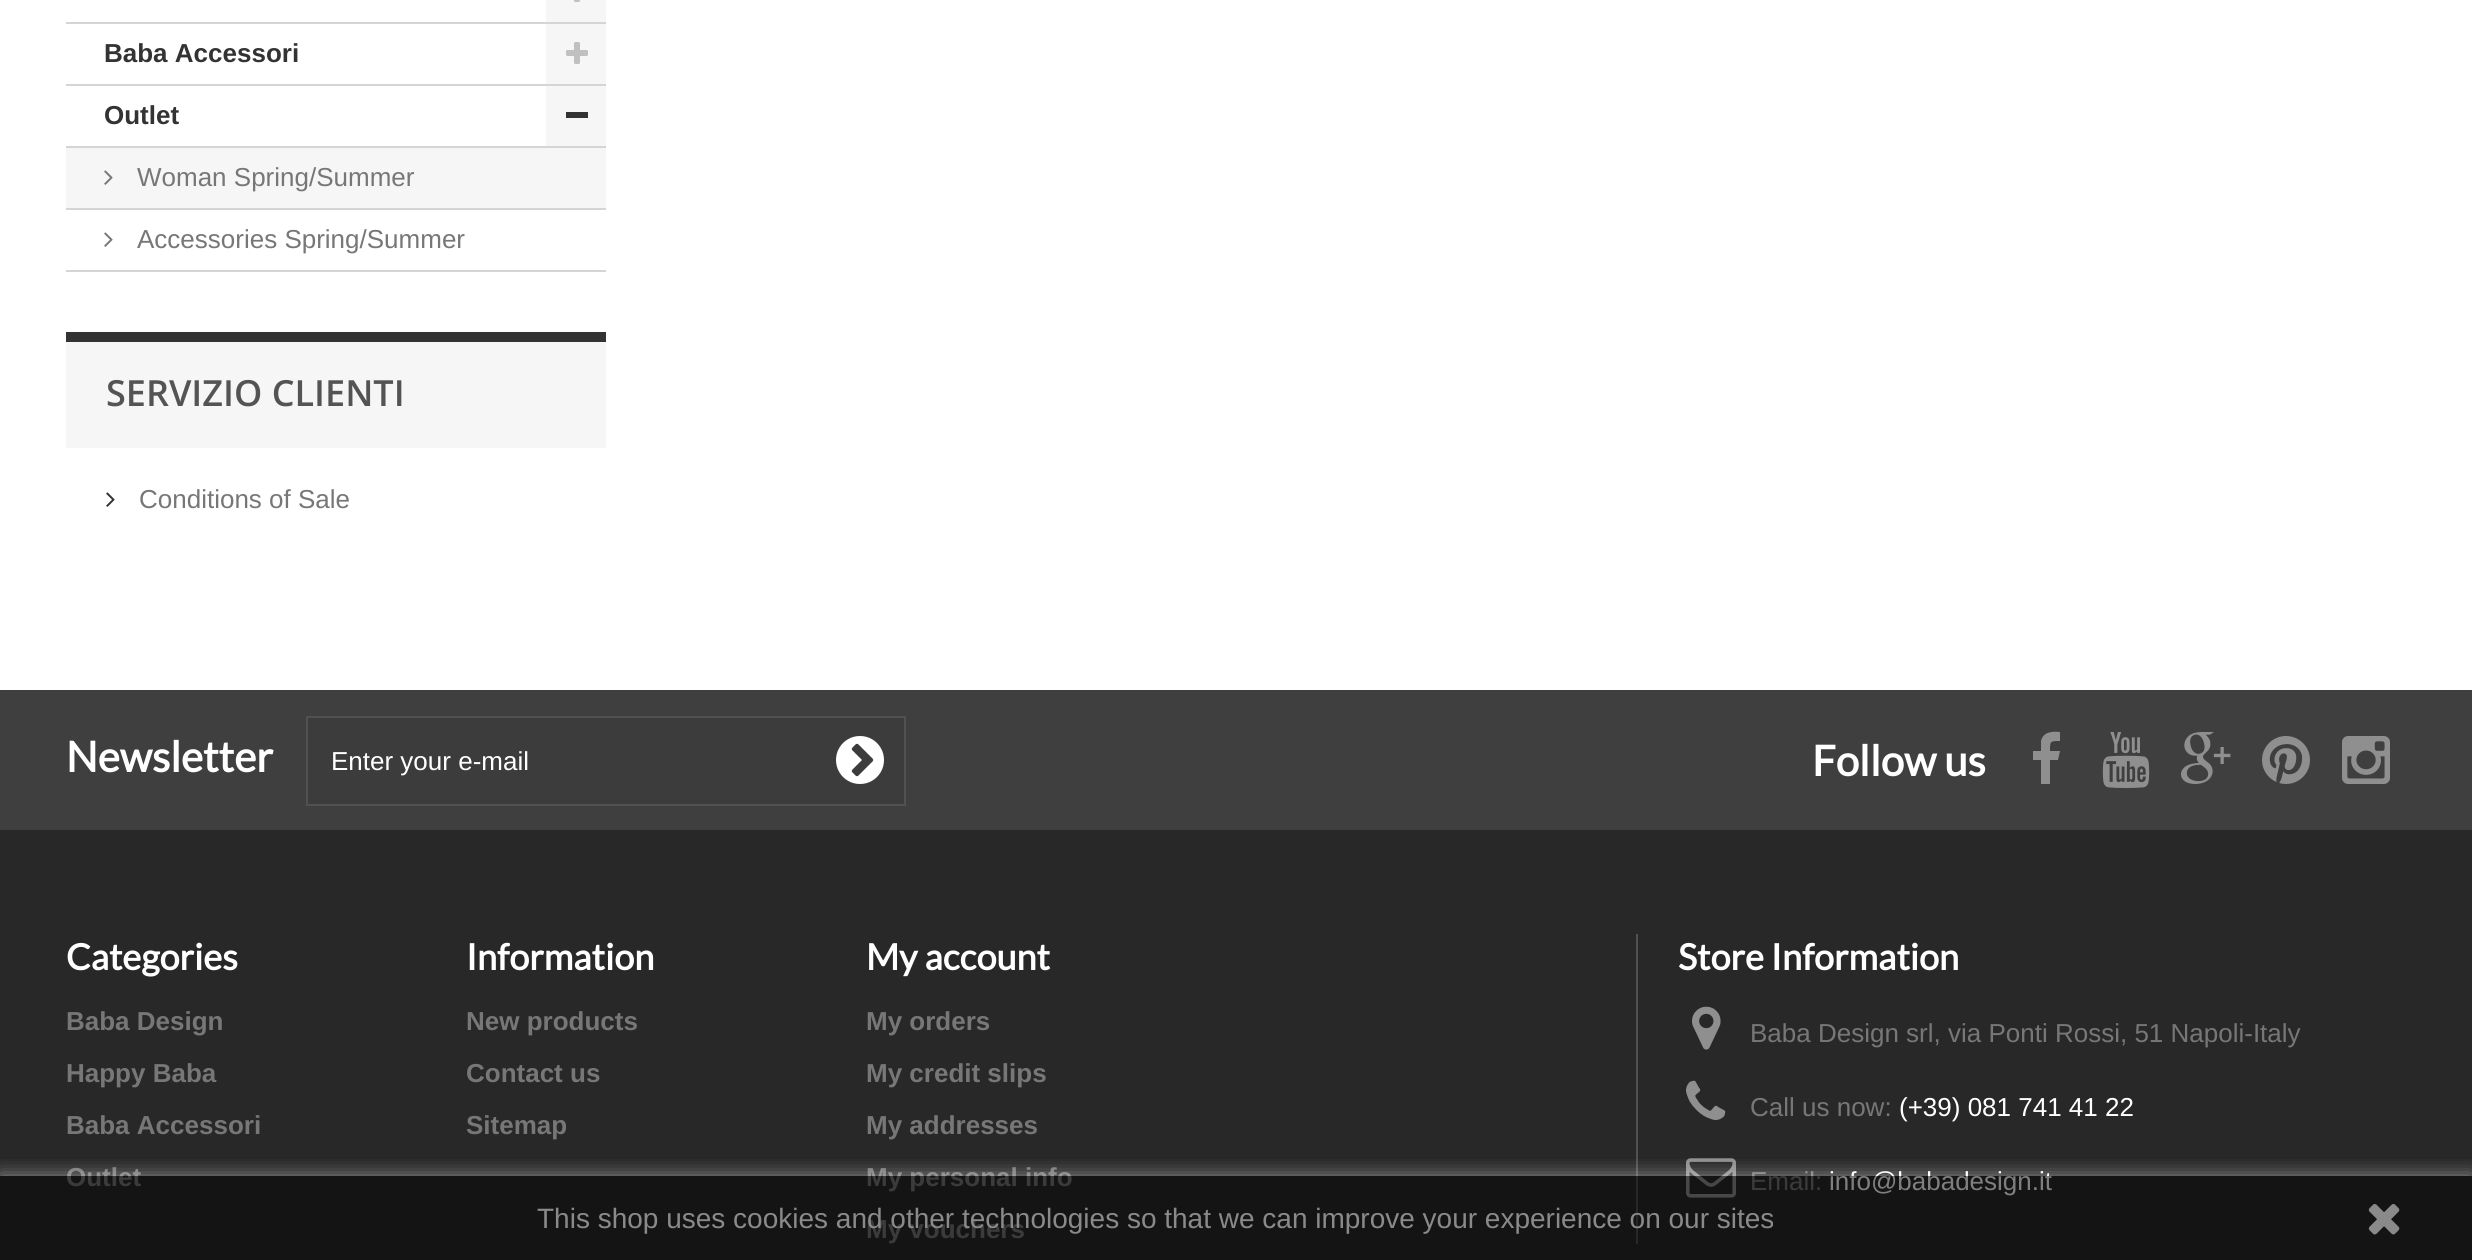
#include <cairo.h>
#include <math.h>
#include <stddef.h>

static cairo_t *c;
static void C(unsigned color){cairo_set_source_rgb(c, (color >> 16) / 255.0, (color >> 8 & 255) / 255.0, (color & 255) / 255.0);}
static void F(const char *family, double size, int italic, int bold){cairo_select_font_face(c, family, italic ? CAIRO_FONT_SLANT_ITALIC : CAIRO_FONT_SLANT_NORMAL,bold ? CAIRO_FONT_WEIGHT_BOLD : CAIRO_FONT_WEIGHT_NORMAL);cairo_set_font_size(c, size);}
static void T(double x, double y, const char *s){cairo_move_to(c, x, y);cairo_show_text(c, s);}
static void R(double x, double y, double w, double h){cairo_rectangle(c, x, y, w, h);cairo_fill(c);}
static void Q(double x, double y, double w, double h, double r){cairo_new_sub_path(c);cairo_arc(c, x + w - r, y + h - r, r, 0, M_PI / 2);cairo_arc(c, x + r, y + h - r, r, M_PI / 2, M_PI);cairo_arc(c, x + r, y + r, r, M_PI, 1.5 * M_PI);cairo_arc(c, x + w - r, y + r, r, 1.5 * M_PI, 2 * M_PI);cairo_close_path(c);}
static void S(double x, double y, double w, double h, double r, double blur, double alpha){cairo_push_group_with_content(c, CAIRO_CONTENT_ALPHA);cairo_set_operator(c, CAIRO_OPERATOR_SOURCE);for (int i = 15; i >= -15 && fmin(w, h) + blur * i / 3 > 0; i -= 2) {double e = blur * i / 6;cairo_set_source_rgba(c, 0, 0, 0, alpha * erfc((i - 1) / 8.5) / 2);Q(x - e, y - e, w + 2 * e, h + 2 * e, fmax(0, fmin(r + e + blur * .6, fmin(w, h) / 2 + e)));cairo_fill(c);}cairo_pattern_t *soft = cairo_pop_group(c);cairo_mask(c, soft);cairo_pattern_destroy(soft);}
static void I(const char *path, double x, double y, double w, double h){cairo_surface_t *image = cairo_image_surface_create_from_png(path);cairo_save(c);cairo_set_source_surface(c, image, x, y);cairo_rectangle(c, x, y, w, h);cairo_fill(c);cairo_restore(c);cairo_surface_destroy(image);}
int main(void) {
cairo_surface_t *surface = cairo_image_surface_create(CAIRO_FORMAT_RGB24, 2472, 1260);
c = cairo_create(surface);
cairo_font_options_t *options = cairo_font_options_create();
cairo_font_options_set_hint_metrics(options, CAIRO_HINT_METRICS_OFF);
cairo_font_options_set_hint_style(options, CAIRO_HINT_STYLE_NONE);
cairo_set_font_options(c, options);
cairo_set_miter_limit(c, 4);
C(0x282828);
cairo_paint(c);
C(0xffffff);
R(0,0,2472,690);
C(0xf6f6f6);
R(546,0,60,22);
I("1.png",574,0,6,2);
C(0xd6d4d4);
R(66,22,540,2);
R(66,84,540,2);
F("Liberation Sans",26,0,1);
C(0x333333);
T(104,62,"Baba Accessori");
C(0xf6f6f6);
R(546,24,60,60);
I("2.png",566,42,22,22);
C(0xd6d4d4);
R(66,146,540,2);
C(0x333333);
T(104,124,"Outlet");
C(0xf6f6f6);
R(546,86,60,60);
C(0x333333);
R(566,112,22,6);
C(0xf6f6f6);
R(66,148,540,60);
C(0xd6d4d4);
R(66,208,540,2);
I("3.png",104,170,9,15);
F("Liberation Sans",26,0,0);
C(0x777777);
T(137,186,"Woman Spring/Summer");
C(0xd6d4d4);
R(66,270,540,2);
I("4.png",104,232,9,15);
C(0x777777);
T(137,248,"Accessories Spring/Summer");
C(0xf6f6f6);
R(66,342,540,106);
C(0x333333);
R(66,332,540,10);
F("Open Sans SemiBold",36,0,0);
C(0x555454);
T(106,406,"SERVIZIO CLIENTI");
I("5.png",106,492,9,15);
F("Liberation Sans",26,0,0);
C(0x777777);
T(139,508,"Conditions of Sale");
C(0x3f3f3f);
R(0,690,2472,140);
F("Lato",42,0,1);
C(0xffffff);
T(66,772,"Newsletter");
C(0x3c3c3c);
cairo_rectangle(c,307,717,598,88);
cairo_fill_preserve(c);
C(0x515151);
cairo_stroke(c);
F("Liberation Sans",26,0,0);
C(0xffffff);
T(331,770,"Enter your e-mail");
I("6.png",836,736,48,48);
F("Lato",42,0,1);
T(1812,776,"Follow us");
C(0x908f8f);
cairo_new_path(c);
cairo_move_to(c,2060,732);
cairo_line_to(c,2060,741);
cairo_curve_to(c,2050,741,2050,741,2050,751);
cairo_line_to(c,2060,751);
cairo_line_to(c,2058,760);
cairo_line_to(c,2050,760);
cairo_line_to(c,2050,784);
cairo_line_to(c,2041,784);
cairo_line_to(c,2041,760);
cairo_line_to(c,2033,760);
cairo_line_to(c,2033,751);
cairo_line_to(c,2041,751);
cairo_line_to(c,2041,741);
cairo_curve_to(c,2043,732,2052,731,2060,732);
cairo_close_path(c);
cairo_fill(c);
I("7.png",2102,732,48,56);
I("8.png",2181,732,50,52);
I("9.png",2262,736,48,48);
I("10.png",2342,736,48,48);
F("Lato",36,0,1);
C(0xffffff);
T(66,970,"Categories");
F("Liberation Sans",26,0,1);
C(0x777777);
T(66,1030,"Baba Design");
T(66,1082,"Happy Baba");
T(66,1134,"Baba Accessori");
T(66,1186,"Outlet");
F("Lato",36,0,1);
C(0xffffff);
T(466,970,"Information");
F("Liberation Sans",26,0,1);
C(0x777777);
T(466,1030,"New products");
T(466,1082,"Contact us");
T(466,1134,"Sitemap");
F("Lato",36,0,1);
C(0xffffff);
T(866,970,"My account");
F("Liberation Sans",26,0,1);
C(0x777777);
T(866,1030,"My orders");
T(866,1082,"My credit slips");
T(866,1134,"My addresses");
T(866,1186,"My personal info");
T(866,1238,"My vouchers");
C(0x515151);
R(1636,934,2,310);
F("Lato",36,0,1);
C(0xffffff);
T(1678,970,"Store Information");
I("11.png",1692,1006,29,44);
F("Liberation Sans",26,0,0);
C(0x777777);
T(1750,1042,"Baba Design srl, via Ponti Rossi, 51 Napoli-Italy");
I("12.png",1686,1080,40,40);
T(1750,1116,"Call us now:");
C(0xffffff);
T(1899,1116,"(+39) 081 741 41 22");
I("13.png",1686,1158,50,40);
C(0x777777);
T(1750,1190,"Email:");
C(0xffffff);
T(1829,1190,"info@babadesign.it");
cairo_save(c);
cairo_rectangle(c,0,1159,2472,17);
cairo_clip(c);
C(0xffffff);
S(0,1176,2472,84,0,10,.5);
cairo_restore(c);
cairo_set_source_rgba(c,0,0,0,0.5);
R(0,1176,2472,84);
F("Liberation Sans",28,0,0);
C(0x8a8a8a);
T(537,1228,"This shop uses cookies and other technologies so that we can improve your experience on our sites");
I("14.png",2368,1204,32,31);
cairo_surface_write_to_png(surface, "o.png");
cairo_font_options_destroy(options);
cairo_destroy(c);
cairo_surface_destroy(surface);
return 0;
}
